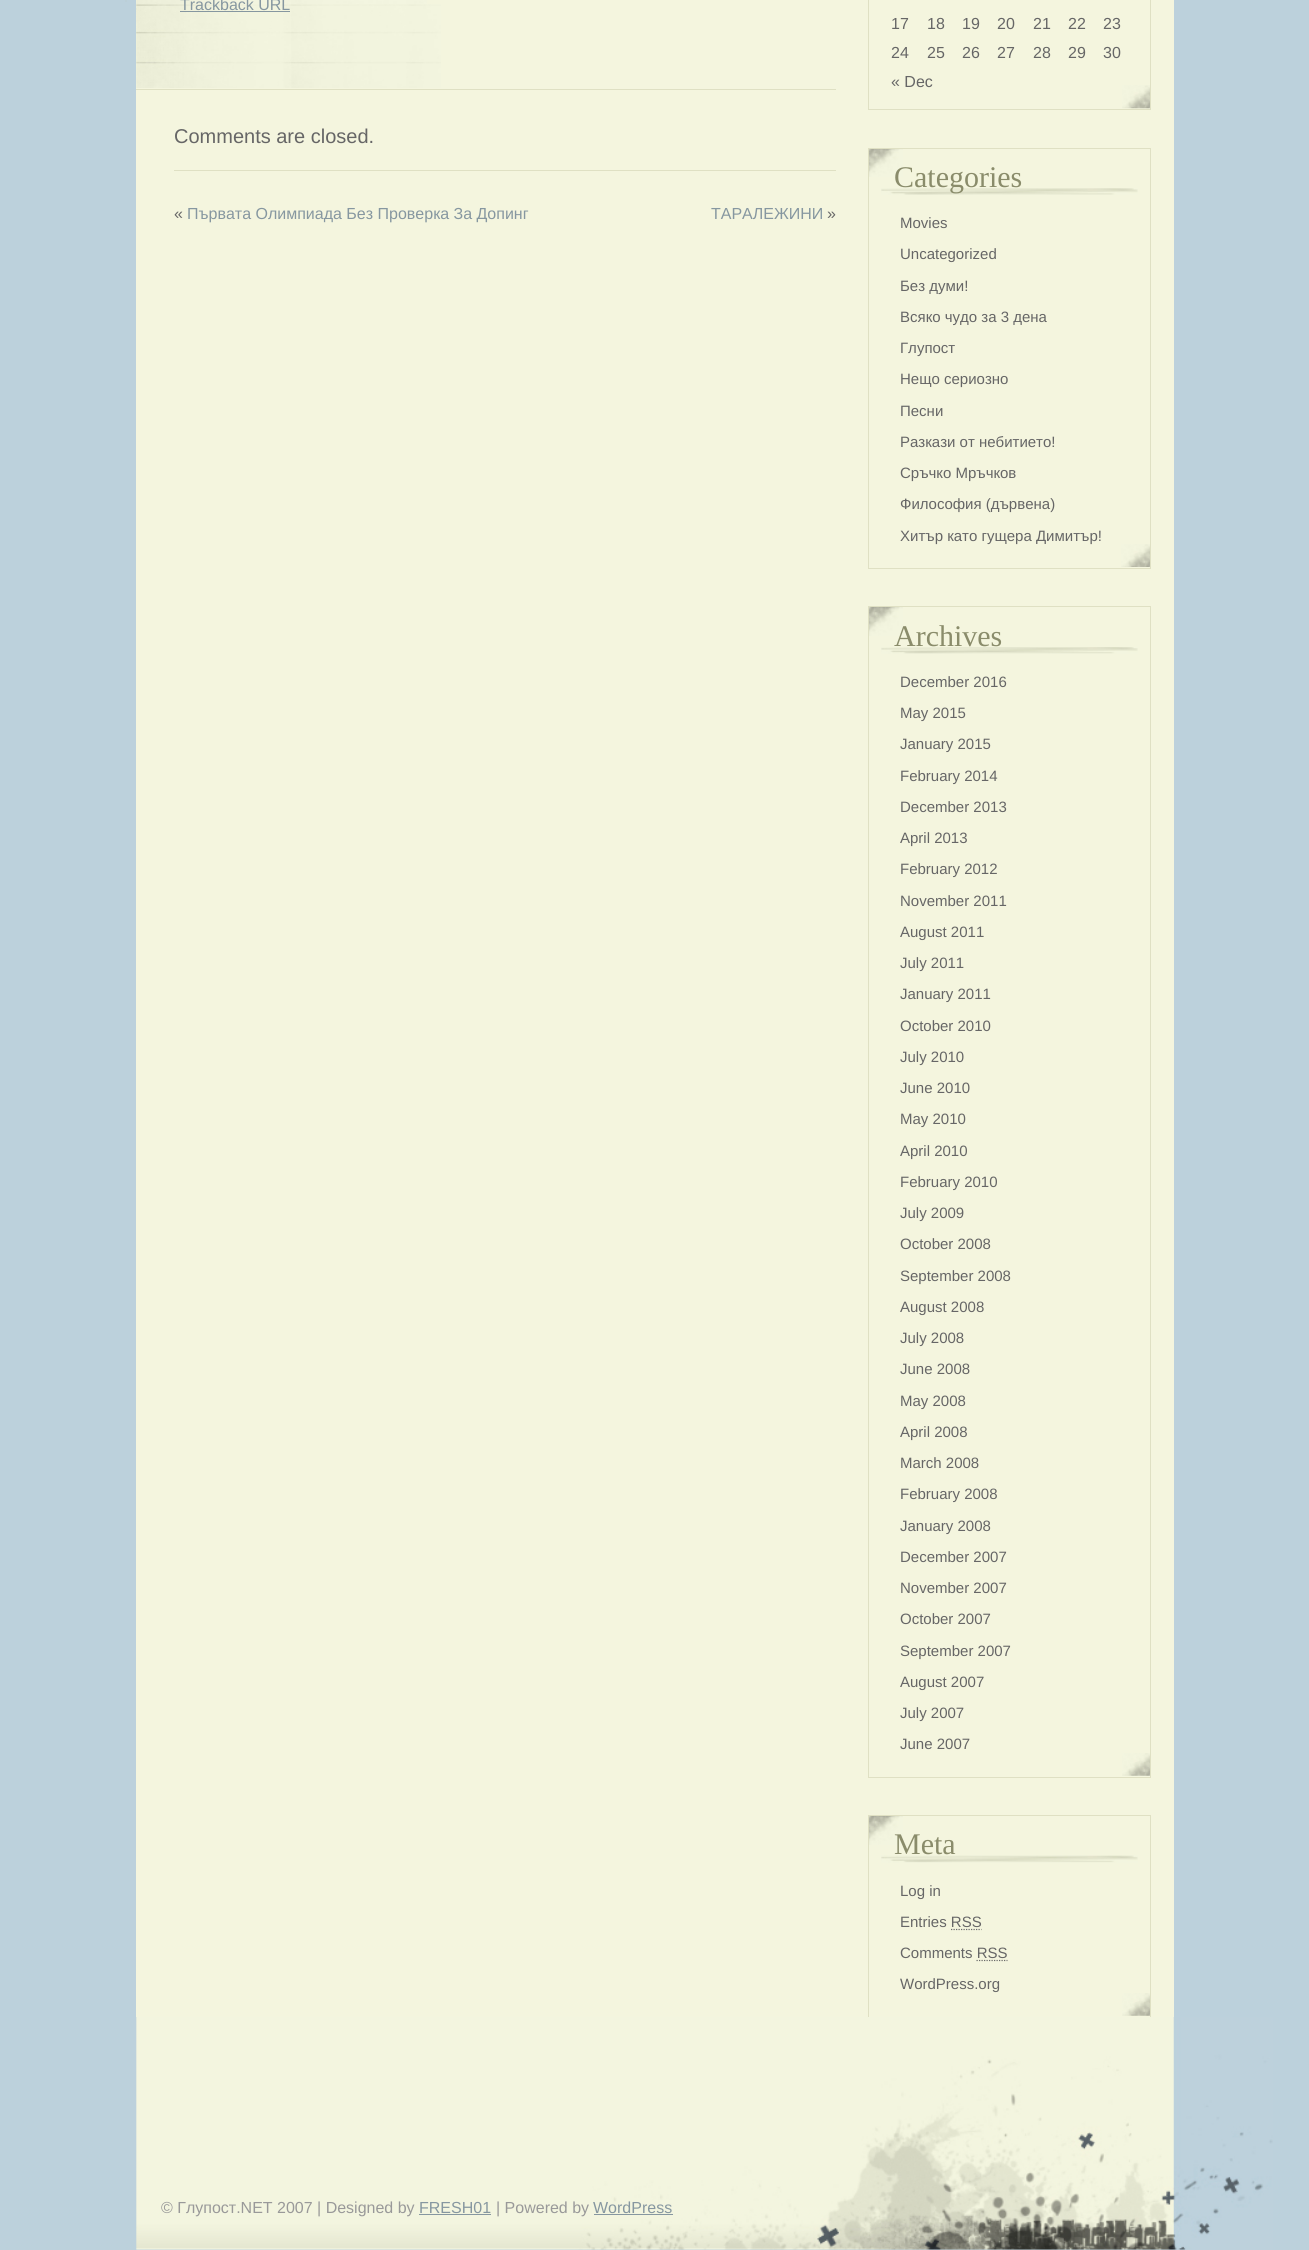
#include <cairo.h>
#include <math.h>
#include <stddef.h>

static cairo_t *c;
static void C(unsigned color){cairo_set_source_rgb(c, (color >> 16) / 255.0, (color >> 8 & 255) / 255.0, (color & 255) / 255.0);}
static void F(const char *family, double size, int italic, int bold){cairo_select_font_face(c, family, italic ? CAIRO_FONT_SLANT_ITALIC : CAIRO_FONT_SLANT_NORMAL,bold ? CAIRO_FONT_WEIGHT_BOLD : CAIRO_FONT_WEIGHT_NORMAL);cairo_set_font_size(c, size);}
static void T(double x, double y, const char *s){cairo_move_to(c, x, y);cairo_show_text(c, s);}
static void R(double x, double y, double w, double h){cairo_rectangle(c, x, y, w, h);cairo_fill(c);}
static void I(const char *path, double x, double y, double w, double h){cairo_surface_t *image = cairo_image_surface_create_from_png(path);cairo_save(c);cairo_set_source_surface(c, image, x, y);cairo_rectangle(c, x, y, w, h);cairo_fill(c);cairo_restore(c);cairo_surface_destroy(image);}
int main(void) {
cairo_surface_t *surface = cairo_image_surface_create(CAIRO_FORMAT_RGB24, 1309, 2250);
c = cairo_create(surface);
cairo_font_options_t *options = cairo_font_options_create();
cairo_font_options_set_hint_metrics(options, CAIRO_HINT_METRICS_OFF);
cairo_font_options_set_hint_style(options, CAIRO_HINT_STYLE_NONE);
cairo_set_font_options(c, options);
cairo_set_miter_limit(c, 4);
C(0xbcd1dc);
cairo_paint(c);
C(0xbbcfd7);
R(125,0,2,2);
C(0xf4f5de);
R(136,0,1038,2017);
I("1.png",136,0,291,46);
C(0xdfe0c3);
R(136,89,700,1);
I("2.png",136,4,305,84);
F("Liberation Sans",16,0,0);
C(0x8697a0);
T(180,10,"Trackback URL");
R(180,11,110,1);
C(0xdfe0c3);
R(174,170,662,1);
F("Liberation Sans",20,0,0);
C(0x666666);
T(174,143,"Comments are closed.");
F("Liberation Sans",16,0,0);
T(174,219,"«");
C(0x8697a0);
T(187,219,"Първата Олимпиада Без Проверка За Допинг");
T(711,219,"ТАРАЛЕЖИНИ");
C(0x666666);
T(827,219,"»");
cairo_rectangle(c,868.5,-.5,282,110);
C(0xdfe0c3);
cairo_set_line_width(c,1);
cairo_stroke(c);
C(0x666666);
T(891,29,"17");
T(927,29,"18");
T(962,29,"19");
T(997,29,"20");
T(1033,29,"21");
T(1068,29,"22");
T(1103,29,"23");
T(891,58,"24");
T(927,58,"25");
T(962,58,"26");
T(997,58,"27");
T(1033,58,"28");
T(1068,58,"29");
T(1103,58,"30");
T(891,87,"« Dec");
I("3.png",1122,85,28,24);
I("4.png",869,149,34,28);
cairo_rectangle(c,868.5,148.5,282,420);
C(0xdfe0c3);
cairo_stroke(c);
I("5.png",881,188,257,7);
F("Liberation Serif",30,0,0);
C(0x8a8c6b);
T(894,187,"Categories");
F("Liberation Sans",15,0,0);
C(0x666666);
T(900,228,"Movies");
T(900,259,"Uncategorized");
T(900,291,"Без думи!");
T(900,322,"Всяко чудо за 3 дена");
T(900,353,"Глупост");
T(900,384,"Нещо сериозно");
T(900,416,"Песни");
T(900,447,"Разкази от небитието!");
T(900,478,"Сръчко Мръчков");
T(900,509,"Философия (дървена)");
T(900,541,"Хитър като гущера Димитър!");
I("6.png",1121,544,29,23);
I("7.png",869,607,34,29);
cairo_rectangle(c,868.5,606.5,282,1171);
C(0xdfe0c3);
cairo_stroke(c);
I("8.png",881,647,257,7);
F("Liberation Serif",30,0,0);
C(0x8a8c6b);
T(894,646,"Archives");
F("Liberation Sans",15,0,0);
C(0x666666);
T(900,687,"December 2016");
T(900,718,"May 2015");
T(900,749,"January 2015");
T(900,781,"February 2014");
T(900,812,"December 2013");
T(900,843,"April 2013");
T(900,874,"February 2012");
T(900,906,"November 2011");
T(900,937,"August 2011");
T(900,968,"July 2011");
T(900,999,"January 2011");
T(900,1031,"October 2010");
T(900,1062,"July 2010");
T(900,1093,"June 2010");
T(900,1124,"May 2010");
T(900,1156,"April 2010");
T(900,1187,"February 2010");
T(900,1218,"July 2009");
T(900,1249,"October 2008");
T(900,1281,"September 2008");
T(900,1312,"August 2008");
T(900,1343,"July 2008");
T(900,1374,"June 2008");
T(900,1406,"May 2008");
T(900,1437,"April 2008");
T(900,1468,"March 2008");
T(900,1499,"February 2008");
T(900,1531,"January 2008");
T(900,1562,"December 2007");
T(900,1593,"November 2007");
T(900,1624,"October 2007");
T(900,1656,"September 2007");
T(900,1687,"August 2007");
T(900,1718,"July 2007");
T(900,1749,"June 2007");
I("9.png",1122,1753,28,23);
I("10.png",869,1816,34,29);
cairo_rectangle(c,868.5,1815.5,282,202);
C(0xdfe0c3);
cairo_stroke(c);
I("11.png",881,1855,257,8);
F("Liberation Serif",30,0,0);
C(0x8a8c6b);
T(894,1854,"Meta");
F("Liberation Sans",15,0,0);
C(0x666666);
T(900,1896,"Log in");
T(900,1927,"Entries RSS");
cairo_new_path(c);
cairo_move_to(c,951,1929.5);
cairo_line_to(c,981.5,1929.5);
C(0x6a6a6a);
cairo_set_line_width(c,1.2);
cairo_set_dash(c,(double[]){1.25,1.25},2,0);
cairo_stroke(c);
C(0x666666);
T(900,1958,"Comments RSS");
cairo_new_path(c);
cairo_move_to(c,976.5,1960.5);
cairo_line_to(c,1007.5,1960.5);
C(0x6a6a6a);
cairo_stroke(c);
C(0x666666);
T(900,1989,"WordPress.org");
I("9.png",1122,1993,28,23);
I("12.png",136,2017,1137,233);
F("Liberation Sans",16,0,0);
C(0x999999);
T(161,2213,"© Глупост.NET 2007 | Designed by");
C(0x8697a0);
T(419,2213,"FRESH01");
R(419,2214,72,1);
C(0x999999);
T(496,2213,"| Powered by");
C(0x8697a0);
T(593,2213,"WordPress");
R(594,2214,79,1);
cairo_surface_write_to_png(surface, "o.png");
cairo_font_options_destroy(options);
cairo_destroy(c);
cairo_surface_destroy(surface);
return 0;
}
